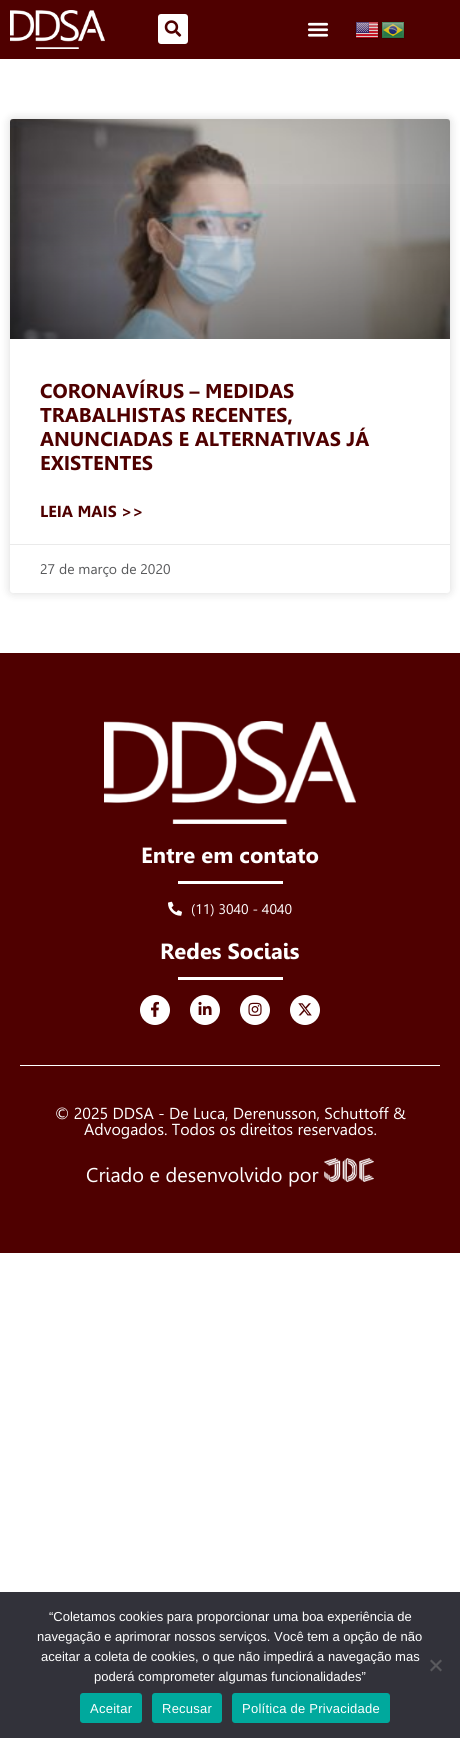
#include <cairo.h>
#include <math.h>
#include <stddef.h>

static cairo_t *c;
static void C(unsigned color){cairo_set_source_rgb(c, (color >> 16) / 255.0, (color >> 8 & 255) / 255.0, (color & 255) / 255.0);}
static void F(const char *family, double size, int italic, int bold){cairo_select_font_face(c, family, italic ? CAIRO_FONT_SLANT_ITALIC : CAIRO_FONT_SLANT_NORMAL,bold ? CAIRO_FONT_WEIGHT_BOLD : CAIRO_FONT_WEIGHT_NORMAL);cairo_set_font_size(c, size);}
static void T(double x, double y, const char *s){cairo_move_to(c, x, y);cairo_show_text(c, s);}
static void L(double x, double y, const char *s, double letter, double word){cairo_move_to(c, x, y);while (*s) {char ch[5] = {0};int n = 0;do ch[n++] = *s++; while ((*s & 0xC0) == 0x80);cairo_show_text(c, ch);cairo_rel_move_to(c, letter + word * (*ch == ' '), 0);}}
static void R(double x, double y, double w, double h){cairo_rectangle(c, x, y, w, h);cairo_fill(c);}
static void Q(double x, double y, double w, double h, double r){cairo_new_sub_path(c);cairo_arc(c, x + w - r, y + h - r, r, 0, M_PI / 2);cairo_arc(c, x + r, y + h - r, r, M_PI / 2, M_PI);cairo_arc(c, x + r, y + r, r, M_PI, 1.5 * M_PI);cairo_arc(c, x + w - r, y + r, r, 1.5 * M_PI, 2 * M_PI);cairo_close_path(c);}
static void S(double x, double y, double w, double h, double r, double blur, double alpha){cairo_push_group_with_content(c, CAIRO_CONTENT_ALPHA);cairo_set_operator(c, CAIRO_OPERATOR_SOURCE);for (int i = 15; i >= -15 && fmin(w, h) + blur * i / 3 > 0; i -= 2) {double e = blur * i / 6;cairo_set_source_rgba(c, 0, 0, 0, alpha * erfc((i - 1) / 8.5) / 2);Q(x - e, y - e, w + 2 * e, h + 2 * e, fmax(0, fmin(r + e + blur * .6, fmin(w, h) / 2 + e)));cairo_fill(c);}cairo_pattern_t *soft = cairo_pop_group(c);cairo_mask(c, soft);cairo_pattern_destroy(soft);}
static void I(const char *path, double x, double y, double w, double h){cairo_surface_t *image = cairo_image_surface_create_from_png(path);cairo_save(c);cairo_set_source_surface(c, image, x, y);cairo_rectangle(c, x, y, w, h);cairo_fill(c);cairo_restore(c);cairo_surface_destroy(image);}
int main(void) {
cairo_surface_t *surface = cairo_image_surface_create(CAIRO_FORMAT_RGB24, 460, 1738);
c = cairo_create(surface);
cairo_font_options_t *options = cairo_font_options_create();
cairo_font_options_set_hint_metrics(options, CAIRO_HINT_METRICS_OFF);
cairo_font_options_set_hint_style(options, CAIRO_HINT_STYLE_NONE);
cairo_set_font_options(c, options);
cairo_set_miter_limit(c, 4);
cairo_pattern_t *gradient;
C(0xffffff);
cairo_paint(c);
C(0x4f0000);
R(0,0,460,59);
I("1.png",10,10,95,39);
C(0xffffff);
Q(158,14,30,30,3);
cairo_fill(c);
I("2.png",164,20,18,17);
I("3.png",307,22,22,15);
I("4.png",355,21,24,18);
I("5.png",381,21,24,18);
C(0x000000);
S(10,119,440,474,3,5,.15);
C(0xffffff);
Q(10,119,440,474,3);
cairo_fill(c);
I("6.png",10,119,440,220);
gradient = cairo_pattern_create_linear(230,339,230,119);
cairo_pattern_add_color_stop_rgba(gradient,0,0,0,0,.35);
cairo_pattern_add_color_stop_rgba(gradient,.75,0,0,0,0);
cairo_set_source(c,gradient);
cairo_pattern_destroy(gradient);
R(10,184,440,155);
F("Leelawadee",20,0,1);
C(0x4f0000);
T(40,398,"CORONAVÍRUS – MEDIDAS");
T(40,422,"TRABALHISTAS RECENTES,");
T(40,446,"ANUNCIADAS E ALTERNATIVAS JÁ");
T(40,470,"EXISTENTES");
F("Leelawadee",16,0,1);
T(40,517,"LEIA MAIS >>");
C(0xeaeaea);
R(10,544,440,1);
F("Leelawadee",14,0,0);
C(0x58595b);
T(40,574,"27 de março de 2020");
C(0x4f0000);
R(0,653,460,600);
I("7.png",104,721,252,103);
F("Leelawadee",22,0,1);
C(0xffffff);
T(141,863,"Entre em contato");
R(178,881,105,3);
I("8.png",168,901,14,15);
F("Leelawadee",14,0,0);
T(191,914,"(11) 3040 - 4040");
F("Leelawadee",22,0,1);
T(160,959,"Redes Sociais");
R(178,977,105,3);
cairo_new_path(c);
cairo_arc(c,155,1010,15,0,2 * M_PI);
cairo_fill(c);
I("9.png",151,1001,8,16);
cairo_arc(c,205,1010,15,0,2 * M_PI);
cairo_fill(c);
I("10.png",198,1001,14,14);
cairo_arc(c,255,1010,15,0,2 * M_PI);
cairo_fill(c);
I("11.png",248,1002,14,14);
cairo_arc(c,305,1010,15,0,2 * M_PI);
cairo_fill(c);
I("12.png",298,1003,14,13);
R(20,1065,420,1);
F("Leelawadee",16,0,0);
T(55,1119,"© 2025 DDSA - De Luca, Derenusson, Schuttoff &");
T(84,1135,"Advogados. Todos os direitos reservados.");
F("Leelawadee",20,0,0);
T(86,1182,"Criado e desenvolvido por");
I("13.png",324,1158,50,24);
C(0x32323a);
R(0,1592,460,146);
F("Liberation Sans",13,0,0);
C(0xffffff);
T(49,1621,"“Coletamos cookies para proporcionar uma boa experiência de");
T(37,1641,"navegação e aprimorar nossos serviços. Você tem a opção de não");
T(41,1661,"aceitar a coleta de cookies, o que não impedirá a navegação mas");
T(94,1681,"poderá comprometer algumas funcionalidades”");
C(0x59595d);
cairo_new_path(c);
cairo_move_to(c,440.5,1659.5);
cairo_line_to(c,442,1661);
cairo_line_to(c,431.5,1671.5);
cairo_line_to(c,430,1670);
cairo_close_path(c);
cairo_fill(c);
cairo_new_path(c);
cairo_move_to(c,430,1661);
cairo_line_to(c,431.5,1659.5);
cairo_line_to(c,442,1670);
cairo_line_to(c,440.5,1671.5);
cairo_close_path(c);
cairo_fill(c);
C(0x00a99d);
Q(80,1693,62,30,3);
cairo_fill(c);
C(0xffffff);
L(90,1713,"Aceitar",.25,0);
C(0x00a99d);
Q(152,1693,70,30,3);
cairo_fill(c);
C(0xffffff);
L(162,1713,"Recusar",.25,0);
C(0x00a99d);
Q(232,1693,158,30,3);
cairo_fill(c);
C(0xffffff);
L(242,1713,"Política de Privacidade",.25,0);
cairo_surface_write_to_png(surface, "o.png");
cairo_font_options_destroy(options);
cairo_destroy(c);
cairo_surface_destroy(surface);
return 0;
}
